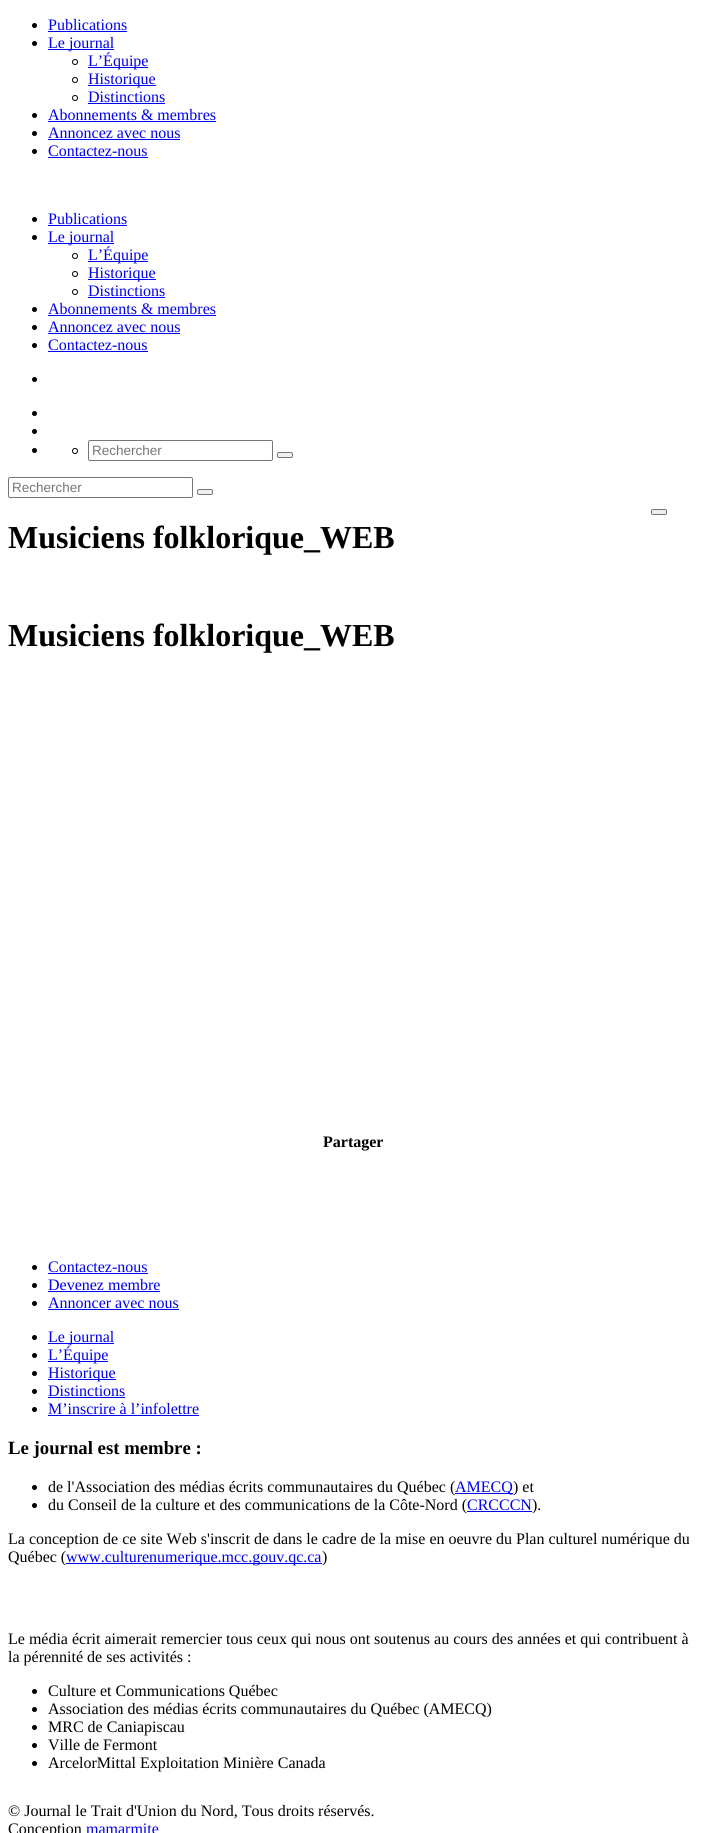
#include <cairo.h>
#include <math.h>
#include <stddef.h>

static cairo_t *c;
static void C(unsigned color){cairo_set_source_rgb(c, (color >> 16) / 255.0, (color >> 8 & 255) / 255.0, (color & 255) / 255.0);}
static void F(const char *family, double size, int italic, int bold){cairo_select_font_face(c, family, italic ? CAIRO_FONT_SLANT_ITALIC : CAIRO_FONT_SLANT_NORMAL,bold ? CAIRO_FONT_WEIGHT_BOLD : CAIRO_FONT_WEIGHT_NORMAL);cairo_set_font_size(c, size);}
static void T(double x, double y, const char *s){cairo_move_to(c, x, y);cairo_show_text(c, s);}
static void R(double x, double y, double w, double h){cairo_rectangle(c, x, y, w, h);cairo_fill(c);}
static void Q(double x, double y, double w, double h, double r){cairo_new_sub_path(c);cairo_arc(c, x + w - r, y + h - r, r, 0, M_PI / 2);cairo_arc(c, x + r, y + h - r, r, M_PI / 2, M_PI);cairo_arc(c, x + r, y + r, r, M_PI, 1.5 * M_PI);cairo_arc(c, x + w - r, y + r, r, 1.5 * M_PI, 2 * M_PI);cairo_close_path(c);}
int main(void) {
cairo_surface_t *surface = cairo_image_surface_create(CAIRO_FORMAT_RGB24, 707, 1833);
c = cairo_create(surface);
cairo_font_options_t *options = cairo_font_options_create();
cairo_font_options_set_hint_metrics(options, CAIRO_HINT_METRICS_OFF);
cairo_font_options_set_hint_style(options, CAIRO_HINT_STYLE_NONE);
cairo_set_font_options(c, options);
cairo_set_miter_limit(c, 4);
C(0xffffff);
cairo_paint(c);
C(0x000000);
cairo_arc(c,34.5,25.5,2.5,0,2 * M_PI);
cairo_fill(c);
F("Liberation Serif",16,0,0);
C(0x0000ee);
T(48,30,"Publications");
R(48,31,79,1);
C(0x000000);
cairo_new_path(c);
cairo_arc(c,34.5,43.5,2.5,0,2 * M_PI);
cairo_fill(c);
C(0x0000ee);
R(48,49,66,1);
T(48,48,"Le journal");
cairo_new_path(c);
cairo_arc(c,75,62,2.5,0,2 * M_PI);
C(0x000000);
cairo_set_line_width(c,1);
cairo_stroke(c);
C(0x0000ee);
R(88,67,60,1);
T(88,66,"L’Équipe");
cairo_new_path(c);
cairo_arc(c,75,80,2.5,0,2 * M_PI);
C(0x000000);
cairo_stroke(c);
C(0x0000ee);
R(88,85,68,1);
T(88,84,"Historique");
cairo_new_path(c);
cairo_arc(c,75,98,2.5,0,2 * M_PI);
C(0x000000);
cairo_stroke(c);
C(0x0000ee);
T(88,102,"Distinctions");
R(88,103,77,1);
C(0x000000);
cairo_new_path(c);
cairo_arc(c,34.5,115.5,2.5,0,2 * M_PI);
cairo_fill(c);
C(0x0000ee);
T(48,120,"Abonnements & membres");
R(48,121,168,1);
C(0x000000);
cairo_new_path(c);
cairo_arc(c,34.5,133.5,2.5,0,2 * M_PI);
cairo_fill(c);
C(0x0000ee);
T(48,138,"Annoncez avec nous");
R(48,139,132,1);
C(0x000000);
cairo_new_path(c);
cairo_arc(c,34.5,151.5,2.5,0,2 * M_PI);
cairo_fill(c);
C(0x0000ee);
T(48,156,"Contactez-nous");
R(48,157,100,1);
C(0x000000);
cairo_new_path(c);
cairo_arc(c,34.5,219.5,2.5,0,2 * M_PI);
cairo_fill(c);
C(0x0000ee);
T(48,224,"Publications");
R(48,225,79,1);
C(0x000000);
cairo_new_path(c);
cairo_arc(c,34.5,237.5,2.5,0,2 * M_PI);
cairo_fill(c);
C(0x0000ee);
R(48,243,66,1);
T(48,242,"Le journal");
cairo_new_path(c);
cairo_arc(c,75,256,2.5,0,2 * M_PI);
C(0x000000);
cairo_stroke(c);
C(0x0000ee);
R(88,261,60,1);
T(88,260,"L’Équipe");
cairo_new_path(c);
cairo_arc(c,75,274,2.5,0,2 * M_PI);
C(0x000000);
cairo_stroke(c);
C(0x0000ee);
R(88,279,68,1);
T(88,278,"Historique");
cairo_new_path(c);
cairo_arc(c,75,292,2.5,0,2 * M_PI);
C(0x000000);
cairo_stroke(c);
C(0x0000ee);
T(88,296,"Distinctions");
R(88,297,77,1);
C(0x000000);
cairo_new_path(c);
cairo_arc(c,34.5,309.5,2.5,0,2 * M_PI);
cairo_fill(c);
C(0x0000ee);
T(48,314,"Abonnements & membres");
R(48,315,168,1);
C(0x000000);
cairo_new_path(c);
cairo_arc(c,34.5,327.5,2.5,0,2 * M_PI);
cairo_fill(c);
C(0x0000ee);
T(48,332,"Annoncez avec nous");
R(48,333,132,1);
C(0x000000);
cairo_new_path(c);
cairo_arc(c,34.5,345.5,2.5,0,2 * M_PI);
cairo_fill(c);
C(0x0000ee);
T(48,350,"Contactez-nous");
R(48,351,100,1);
C(0x000000);
cairo_new_path(c);
cairo_arc(c,34.5,379.5,2.5,0,2 * M_PI);
cairo_fill(c);
cairo_arc(c,34.5,413.5,2.5,0,2 * M_PI);
cairo_fill(c);
cairo_arc(c,34.5,431.5,2.5,0,2 * M_PI);
cairo_fill(c);
cairo_arc(c,34.5,450.5,2.5,0,2 * M_PI);
cairo_fill(c);
cairo_arc(c,75,451,2.5,0,2 * M_PI);
cairo_stroke(c);
Q(88.5,440.5,184,20,1.5);
C(0x767676);
cairo_stroke(c);
F("Liberation Sans",13.5,0,0);
C(0x757575);
T(92,455,"Rechercher");
C(0xefefef);
Q(277.5,452.5,15,5,1.5);
cairo_fill_preserve(c);
C(0x767676);
cairo_stroke(c);
Q(8.5,477.5,184,20,1.5);
cairo_stroke(c);
C(0x757575);
T(12,492,"Rechercher");
C(0xefefef);
Q(197.5,489.5,15,5,1.5);
cairo_fill_preserve(c);
C(0x767676);
cairo_stroke(c);
C(0xefefef);
Q(651.5,509.5,15,5,1.5);
cairo_fill_preserve(c);
C(0x767676);
cairo_stroke(c);
F("Liberation Serif",32,0,1);
C(0x000000);
T(8,548,"Musiciens folklorique_WEB");
T(8,646,"Musiciens folklorique_WEB");
F("Liberation Serif",16,0,1);
T(323,1147,"Partager");
cairo_new_path(c);
cairo_arc(c,34.5,1267.5,2.5,0,2 * M_PI);
cairo_fill(c);
F("Liberation Serif",16,0,0);
C(0x0000ee);
T(48,1272,"Contactez-nous");
R(48,1273,100,1);
C(0x000000);
cairo_new_path(c);
cairo_arc(c,34.5,1285.5,2.5,0,2 * M_PI);
cairo_fill(c);
C(0x0000ee);
T(48,1290,"Devenez membre");
R(48,1291,112,1);
C(0x000000);
cairo_new_path(c);
cairo_arc(c,34.5,1303.5,2.5,0,2 * M_PI);
cairo_fill(c);
C(0x0000ee);
T(48,1308,"Annoncer avec nous");
R(48,1309,131,1);
C(0x000000);
cairo_new_path(c);
cairo_arc(c,34.5,1337.5,2.5,0,2 * M_PI);
cairo_fill(c);
C(0x0000ee);
R(48,1343,66,1);
T(48,1342,"Le journal");
C(0x000000);
cairo_new_path(c);
cairo_arc(c,34.5,1355.5,2.5,0,2 * M_PI);
cairo_fill(c);
C(0x0000ee);
R(48,1361,60,1);
T(48,1360,"L’Équipe");
C(0x000000);
cairo_new_path(c);
cairo_arc(c,34.5,1373.5,2.5,0,2 * M_PI);
cairo_fill(c);
C(0x0000ee);
R(48,1379,68,1);
T(48,1378,"Historique");
C(0x000000);
cairo_new_path(c);
cairo_arc(c,34.5,1391.5,2.5,0,2 * M_PI);
cairo_fill(c);
C(0x0000ee);
T(48,1396,"Distinctions");
R(48,1397,77,1);
C(0x000000);
cairo_new_path(c);
cairo_arc(c,34.5,1409.5,2.5,0,2 * M_PI);
cairo_fill(c);
C(0x0000ee);
T(48,1414,"M’inscrire à l’infolettre");
R(48,1415,151,1);
F("Liberation Serif",18.75,0,1);
C(0x000000);
T(8,1454,"Le journal est membre :");
cairo_new_path(c);
cairo_arc(c,34.5,1487.5,2.5,0,2 * M_PI);
cairo_fill(c);
F("Liberation Serif",16,0,0);
T(48,1492,"de l'Association des médias écrits communautaires du Québec (");
C(0x0000ee);
R(455,1493,58,1);
T(455,1492,"AMECQ");
C(0x000000);
T(513,1492,") et");
cairo_new_path(c);
cairo_arc(c,34.5,1505.5,2.5,0,2 * M_PI);
cairo_fill(c);
T(48,1510,"du Conseil de la culture et des communications de la Côte-Nord (");
C(0x0000ee);
T(467,1510,"CRCCCN");
R(467,1511,65,1);
C(0x000000);
T(532,1510,").");
T(8,1544,"La conception de ce site Web s'inscrit de dans le cadre de la mise en oeuvre du Plan culturel numérique du");
T(8,1562,"Québec (");
C(0x0000ee);
R(66,1563,256,1);
T(66,1562,"www.culturenumerique.mcc.gouv.qc.ca");
C(0x000000);
T(322,1562,")");
T(8,1644,"Le média écrit aimerait remercier tous ceux qui nous ont soutenus au cours des années et qui contribuent à");
T(8,1662,"la pérennité de ses activités :");
cairo_new_path(c);
cairo_arc(c,34.5,1691.5,2.5,0,2 * M_PI);
cairo_fill(c);
T(48,1696,"Culture et Communications Québec");
cairo_new_path(c);
cairo_arc(c,34.5,1709.5,2.5,0,2 * M_PI);
cairo_fill(c);
T(48,1714,"Association des médias écrits communautaires du Québec (AMECQ)");
cairo_new_path(c);
cairo_arc(c,34.5,1727.5,2.5,0,2 * M_PI);
cairo_fill(c);
T(48,1732,"MRC de Caniapiscau");
cairo_new_path(c);
cairo_arc(c,34.5,1745.5,2.5,0,2 * M_PI);
cairo_fill(c);
T(48,1750,"Ville de Fermont");
cairo_new_path(c);
cairo_arc(c,34.5,1763.5,2.5,0,2 * M_PI);
cairo_fill(c);
T(48,1768,"ArcelorMittal Exploitation Minière Canada");
T(8,1816,"© Journal le Trait d'Union du Nord, Tous droits réservés.");
T(8,1834,"Conception");
C(0x0000ee);
T(86,1834,"mamarmite");
cairo_surface_write_to_png(surface, "o.png");
cairo_font_options_destroy(options);
cairo_destroy(c);
cairo_surface_destroy(surface);
return 0;
}
